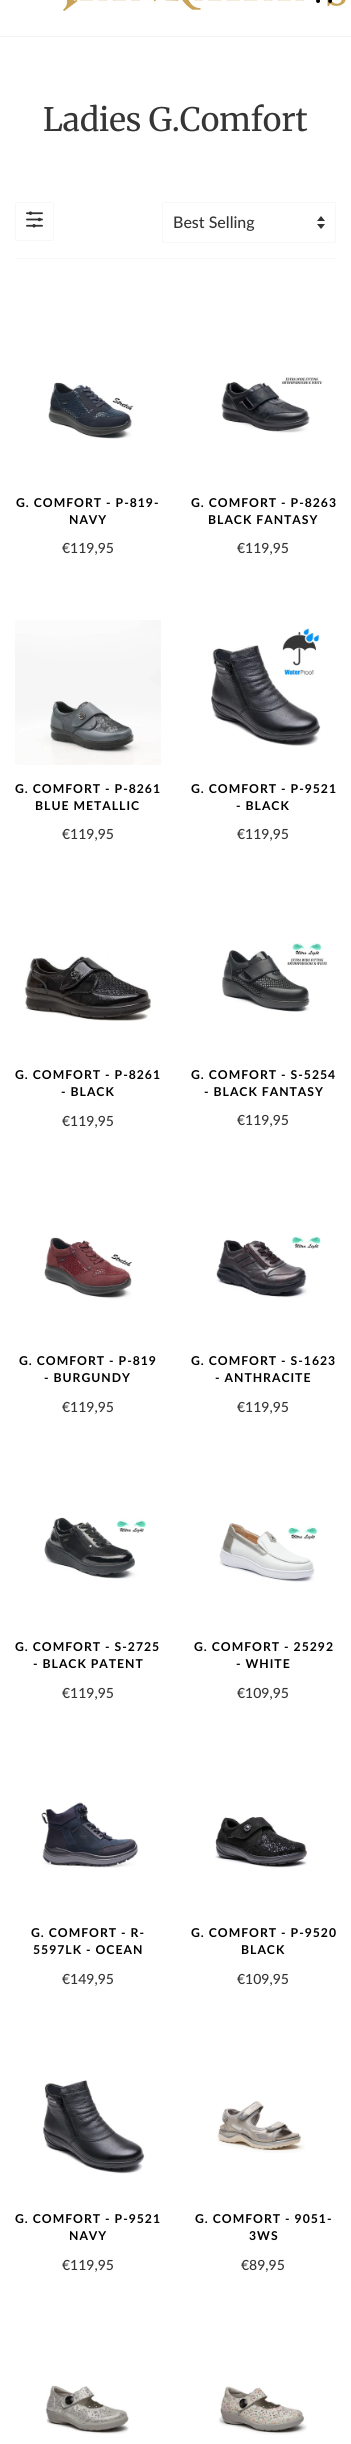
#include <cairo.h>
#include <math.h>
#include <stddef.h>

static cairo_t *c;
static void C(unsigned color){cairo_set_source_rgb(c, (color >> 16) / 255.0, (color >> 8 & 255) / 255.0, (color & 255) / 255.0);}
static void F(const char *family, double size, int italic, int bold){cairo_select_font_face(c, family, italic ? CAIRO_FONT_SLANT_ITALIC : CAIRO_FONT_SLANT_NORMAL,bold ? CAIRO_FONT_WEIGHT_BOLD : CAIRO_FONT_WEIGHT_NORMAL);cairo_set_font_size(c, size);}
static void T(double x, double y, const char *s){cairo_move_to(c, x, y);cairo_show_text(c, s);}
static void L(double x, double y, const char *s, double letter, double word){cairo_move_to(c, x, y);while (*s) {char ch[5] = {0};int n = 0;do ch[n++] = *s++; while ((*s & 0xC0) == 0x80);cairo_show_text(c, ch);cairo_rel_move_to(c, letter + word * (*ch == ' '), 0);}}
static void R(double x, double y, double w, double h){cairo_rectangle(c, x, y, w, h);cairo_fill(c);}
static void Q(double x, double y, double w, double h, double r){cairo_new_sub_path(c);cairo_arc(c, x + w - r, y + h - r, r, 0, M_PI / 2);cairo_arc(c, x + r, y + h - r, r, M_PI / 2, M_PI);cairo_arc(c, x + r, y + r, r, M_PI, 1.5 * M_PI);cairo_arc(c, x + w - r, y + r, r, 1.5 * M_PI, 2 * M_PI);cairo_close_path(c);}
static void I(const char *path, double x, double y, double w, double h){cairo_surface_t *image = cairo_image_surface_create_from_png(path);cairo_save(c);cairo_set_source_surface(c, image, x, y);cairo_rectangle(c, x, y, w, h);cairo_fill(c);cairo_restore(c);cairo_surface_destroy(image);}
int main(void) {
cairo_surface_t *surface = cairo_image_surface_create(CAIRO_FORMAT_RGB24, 351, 2444);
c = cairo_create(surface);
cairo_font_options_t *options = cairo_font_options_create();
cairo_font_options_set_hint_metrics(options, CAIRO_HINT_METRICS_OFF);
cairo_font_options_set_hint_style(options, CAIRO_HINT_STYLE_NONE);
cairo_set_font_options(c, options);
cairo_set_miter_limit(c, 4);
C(0xffffff);
cairo_paint(c);
C(0xf3f3f3);
R(0,36,351,1);
I("1.png",63,0,283,11);
I("2.png",316,0,16,3);
F("Merriweather",32.25,0,0);
C(0x353535);
T(43,131,"Ladies G.Comfort");
Q(15.5,202.5,38,38,1.5);
C(0xf7f7f7);
cairo_set_line_width(c,1);
cairo_stroke(c);
I("3.png",26,211,17,17);
I("4.png",317,216,8,13);
Q(162.5,202.5,173,40,1.5);
cairo_stroke(c);
F("Lato Medium",16,0,0);
C(0x353535);
T(173,228,"Best Selling");
C(0xf7f7f7);
R(15,258,321,1);
I("5.png",48,382,86,57);
F("Lato",12.2,0,1);
C(0x000000);
L(16,507,"G. COMFORT - P-819-",1,0);
L(69,524,"NAVY",1,0);
F("Lato Medium",14,0,0);
C(0x353535);
T(62,553,"€119,95");
I("6.png",221,377,102,56);
F("Lato",12.2,0,1);
C(0x000000);
L(191,507,"G. COMFORT - P-8263",1,0);
L(208,524,"BLACK FANTASY",1,0);
F("Lato Medium",14,0,0);
C(0x353535);
T(237,553,"€119,95");
I("7.png",15,620,146,145);
F("Lato",12.2,0,1);
C(0x000000);
L(15,793,"G. COMFORT - P-8261",1,0);
L(35,810,"BLUE METALLIC",1,0);
F("Lato Medium",14,0,0);
C(0x353535);
T(62,839,"€119,95");
I("8.png",211,627,110,119);
F("Lato",12.2,0,1);
C(0x000000);
L(191,793,"G. COMFORT - P-9521",1,0);
L(236,810,"- BLACK",1,0);
F("Lato Medium",14,0,0);
C(0x353535);
T(237,839,"€119,95");
I("9.png",24,956,127,65);
F("Lato",12.2,0,1);
C(0x000000);
L(15,1079,"G. COMFORT - P-8261",1,0);
L(61,1096,"- BLACK",1,0);
F("Lato Medium",14,0,0);
C(0x353535);
T(62,1126,"€119,95");
I("10.png",222,943,106,69);
F("Lato",12.2,0,1);
C(0x000000);
L(191,1079,"G. COMFORT - S-5254",1,0);
L(204,1096,"- BLACK FANTASY",1,0);
F("Lato Medium",14,0,0);
C(0x353535);
T(237,1125,"€119,95");
I("11.png",44,1236,88,63);
F("Lato",12.2,0,1);
C(0x000000);
L(19,1365,"G. COMFORT - P-819",1,0);
L(44,1382,"- BURGUNDY",1,0);
F("Lato Medium",14,0,0);
C(0x353535);
T(62,1412,"€119,95");
I("12.png",216,1236,105,62);
F("Lato",12.2,0,1);
C(0x000000);
L(191,1365,"G. COMFORT - S-1623",1,0);
L(215,1382,"- ANTHRACITE",1,0);
F("Lato Medium",14,0,0);
C(0x353535);
T(237,1412,"€119,95");
I("13.png",44,1517,102,62);
F("Lato",12.2,0,1);
C(0x000000);
L(15,1651,"G. COMFORT - S-2725",1,0);
L(33,1668,"- BLACK PATENT",1,0);
F("Lato Medium",14,0,0);
C(0x353535);
T(62,1698,"€119,95");
I("14.png",219,1523,99,59);
F("Lato",12.2,0,1);
C(0x000000);
L(194,1651,"G. COMFORT - 25292",1,0);
L(236,1668,"- WHITE",1,0);
F("Lato Medium",14,0,0);
C(0x353535);
T(237,1698,"€109,95");
I("15.png",41,1802,98,66);
F("Lato",12.2,0,1);
C(0x000000);
L(31,1937,"G. COMFORT - R-",1,0);
L(33,1954,"5597LK - OCEAN",1,0);
F("Lato Medium",14,0,0);
C(0x353535);
T(62,1984,"€149,95");
I("16.png",215,1817,92,52);
F("Lato",12.2,0,1);
C(0x000000);
L(191,1937,"G. COMFORT - P-9520",1,0);
L(241,1954,"BLACK",1,0);
F("Lato Medium",14,0,0);
C(0x353535);
T(237,1984,"€109,95");
I("17.png",42,2080,103,94);
F("Lato",12.2,0,1);
C(0x000000);
L(15,2223,"G. COMFORT - P-9521",1,0);
L(69,2240,"NAVY",1,0);
F("Lato Medium",14,0,0);
C(0x353535);
T(62,2270,"€119,95");
I("18.png",217,2101,88,52);
F("Lato",12.2,0,1);
C(0x000000);
L(195,2223,"G. COMFORT - 9051-",1,0);
L(249,2240,"3WS",1,0);
F("Lato Medium",14,0,0);
C(0x353535);
T(241,2270,"€89,95");
I("19.png",45,2385,84,49);
I("20.png",218,2386,89,49);
cairo_surface_write_to_png(surface, "o.png");
cairo_font_options_destroy(options);
cairo_destroy(c);
cairo_surface_destroy(surface);
return 0;
}
